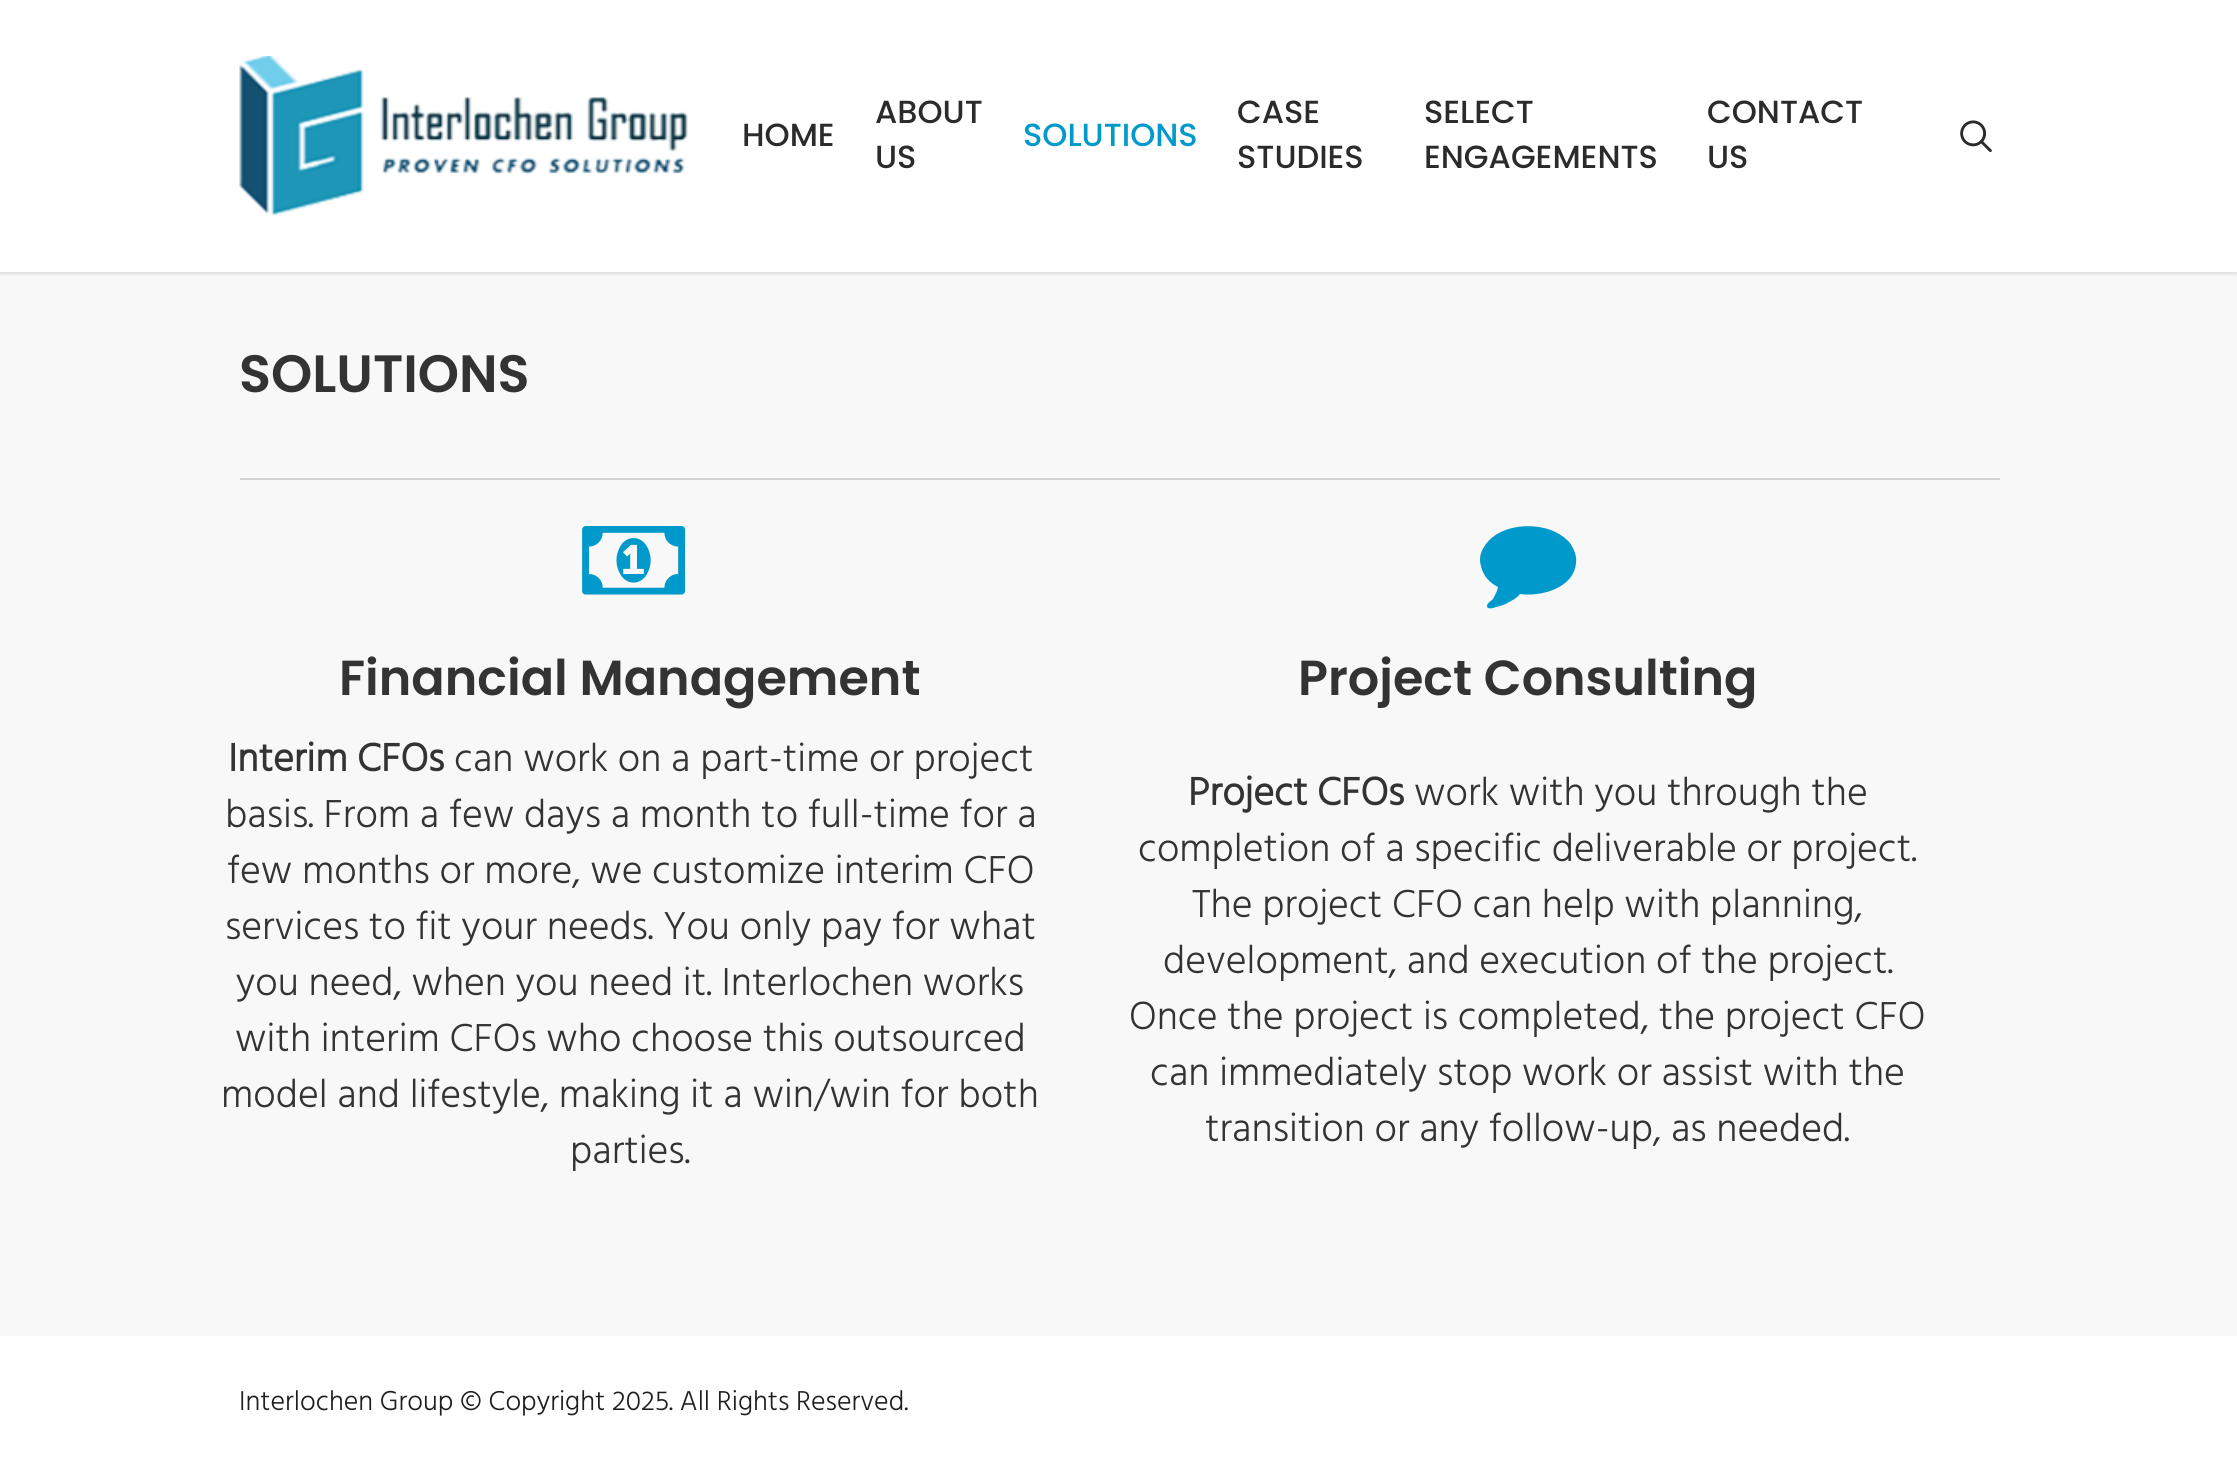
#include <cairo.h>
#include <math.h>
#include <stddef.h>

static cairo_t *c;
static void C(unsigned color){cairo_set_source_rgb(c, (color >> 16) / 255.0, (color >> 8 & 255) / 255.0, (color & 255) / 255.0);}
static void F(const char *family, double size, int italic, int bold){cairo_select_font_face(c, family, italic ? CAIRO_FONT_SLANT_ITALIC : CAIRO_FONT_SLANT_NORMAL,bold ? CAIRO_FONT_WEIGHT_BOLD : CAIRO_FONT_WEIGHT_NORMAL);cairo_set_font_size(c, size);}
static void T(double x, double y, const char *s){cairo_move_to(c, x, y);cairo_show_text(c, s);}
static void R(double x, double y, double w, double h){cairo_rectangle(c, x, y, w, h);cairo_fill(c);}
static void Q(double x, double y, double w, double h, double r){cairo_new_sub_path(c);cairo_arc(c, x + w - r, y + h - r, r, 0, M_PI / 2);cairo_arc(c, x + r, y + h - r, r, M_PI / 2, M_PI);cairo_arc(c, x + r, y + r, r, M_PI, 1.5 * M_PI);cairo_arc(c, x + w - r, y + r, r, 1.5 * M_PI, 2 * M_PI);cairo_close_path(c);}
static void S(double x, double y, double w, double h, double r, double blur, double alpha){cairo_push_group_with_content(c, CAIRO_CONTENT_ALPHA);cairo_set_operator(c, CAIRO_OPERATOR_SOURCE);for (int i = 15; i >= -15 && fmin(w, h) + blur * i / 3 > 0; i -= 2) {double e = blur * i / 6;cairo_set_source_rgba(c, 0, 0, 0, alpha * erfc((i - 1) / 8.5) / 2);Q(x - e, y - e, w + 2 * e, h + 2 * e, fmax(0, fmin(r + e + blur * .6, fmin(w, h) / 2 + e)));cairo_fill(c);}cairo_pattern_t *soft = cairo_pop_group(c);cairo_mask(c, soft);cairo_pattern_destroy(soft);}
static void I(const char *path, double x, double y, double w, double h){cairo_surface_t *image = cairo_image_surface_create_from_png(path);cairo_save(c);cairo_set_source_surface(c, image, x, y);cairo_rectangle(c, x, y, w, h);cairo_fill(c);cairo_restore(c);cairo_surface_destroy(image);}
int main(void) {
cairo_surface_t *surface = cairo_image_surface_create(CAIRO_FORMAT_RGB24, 2237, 1465);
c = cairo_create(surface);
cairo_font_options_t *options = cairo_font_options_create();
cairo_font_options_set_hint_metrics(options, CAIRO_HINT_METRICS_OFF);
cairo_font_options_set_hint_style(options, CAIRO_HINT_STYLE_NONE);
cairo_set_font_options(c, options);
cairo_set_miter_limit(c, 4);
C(0xffffff);
cairo_paint(c);
C(0xf8f8f8);
R(0,272,2237,1064);
cairo_save(c);
cairo_rectangle(c,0,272,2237,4);
cairo_clip(c);
C(0x000000);
S(0,0,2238,272,0,3,.22);
cairo_restore(c);
I("1.png",239,56,449,160);
F("Poppins Medium",32,0,0);
C(0x2b2b2b);
T(742,146,"HOME");
T(875,123,"ABOUT");
T(875,168,"US");
C(0x0099cc);
T(1023,146,"SOLUTIONS");
C(0x2b2b2b);
T(1237,123,"CASE");
T(1237,168,"STUDIES");
T(1424,123,"SELECT");
T(1424,168,"ENGAGEMENTS");
T(1707,123,"CONTACT");
T(1707,168,"US");
I("2.png",1960,120,32,33);
C(0xd3d3d3);
R(240,478,1760,2);
F("Poppins SemiBold",52.5,0,0);
C(0x333333);
T(239,392,"SOLUTIONS");
I("3.png",582,526,104,69);
F("Poppins SemiBold",49.25,0,0);
T(339,695,"Financial Management");
F("Hind",40,0,1);
T(228,771,"Interim CFOs");
F("Hind Light",40,0,0);
T(454,771,"can work on a part-time or project");
T(225,827,"basis. From a few days a month to full-time for a");
T(227,883,"few months or more, we customize interim CFO");
T(225,939,"services to fit your needs. You only pay for what");
T(236,995,"you need, when you need it. Interlochen works");
T(235,1051,"with interim CFOs who choose this outsourced");
T(221,1107,"model and lifestyle, making it a win/win for both");
T(570,1163,"parties.");
C(0x0099cc);
cairo_new_path(c);
cairo_move_to(c,1570,543);
cairo_curve_to(c,1574,549,1577,556,1576,563);
cairo_curve_to(c,1574,588,1541,597,1520,594);
cairo_curve_to(c,1517,598,1513,600,1509,602);
cairo_curve_to(c,1505,605,1500,606,1496,607);
cairo_curve_to(c,1494,608,1487,610,1487,606);
cairo_curve_to(c,1487,603,1491,601,1493,599);
cairo_curve_to(c,1495,595,1497,592,1498,587);
cairo_curve_to(c,1490,583,1483,576,1481,566);
cairo_curve_to(c,1479,560,1480,553,1484,547);
cairo_curve_to(c,1495,528,1523,523,1544,528);
cairo_curve_to(c,1553,530,1563,535,1570,543);
cairo_close_path(c);
cairo_fill(c);
F("Poppins SemiBold",49.25,0,0);
C(0x333333);
T(1298,695,"Project Consulting");
F("Hind",40,0,1);
T(1188,805,"Project CFOs");
F("Hind Light",40,0,0);
T(1414,805,"work with you through the");
T(1138,861,"completion of a specific deliverable or project.");
T(1192,917,"The project CFO can help with planning,");
T(1163,973,"development, and execution of the project.");
T(1129,1029,"Once the project is completed, the project CFO");
T(1150,1085,"can immediately stop work or assist with the");
T(1205,1141,"transition or any follow-up, as needed.");
F("Hind Light",28,0,0);
C(0x1e1e1e);
T(239,1410,"Interlochen Group © Copyright 2025. All Rights Reserved.");
cairo_surface_write_to_png(surface, "o.png");
cairo_font_options_destroy(options);
cairo_destroy(c);
cairo_surface_destroy(surface);
return 0;
}
